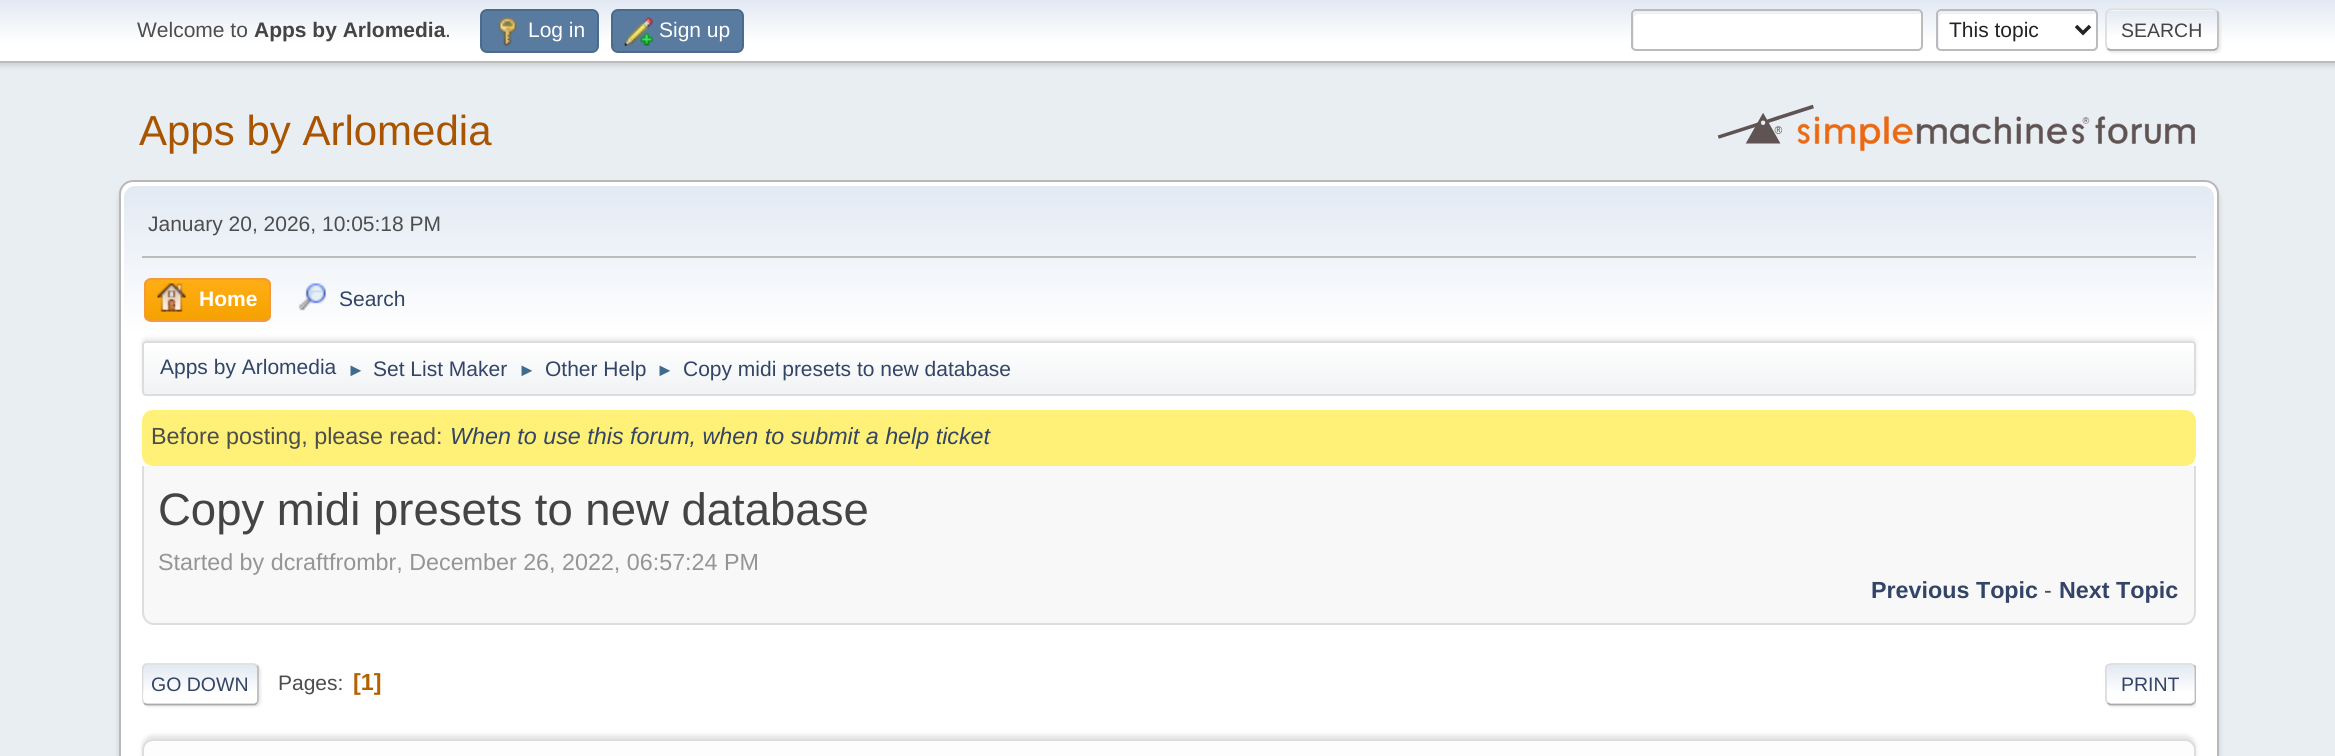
#include <cairo.h>
#include <math.h>
#include <stddef.h>

static cairo_t *c;
static void C(unsigned color){cairo_set_source_rgb(c, (color >> 16) / 255.0, (color >> 8 & 255) / 255.0, (color & 255) / 255.0);}
static void F(const char *family, double size, int italic, int bold){cairo_select_font_face(c, family, italic ? CAIRO_FONT_SLANT_ITALIC : CAIRO_FONT_SLANT_NORMAL,bold ? CAIRO_FONT_WEIGHT_BOLD : CAIRO_FONT_WEIGHT_NORMAL);cairo_set_font_size(c, size);}
static void T(double x, double y, const char *s){cairo_move_to(c, x, y);cairo_show_text(c, s);}
static void R(double x, double y, double w, double h){cairo_rectangle(c, x, y, w, h);cairo_fill(c);}
static void Q(double x, double y, double w, double h, double r){cairo_new_sub_path(c);cairo_arc(c, x + w - r, y + h - r, r, 0, M_PI / 2);cairo_arc(c, x + r, y + h - r, r, M_PI / 2, M_PI);cairo_arc(c, x + r, y + r, r, M_PI, 1.5 * M_PI);cairo_arc(c, x + w - r, y + r, r, 1.5 * M_PI, 2 * M_PI);cairo_close_path(c);}
static void S(double x, double y, double w, double h, double r, double blur, double alpha){cairo_push_group_with_content(c, CAIRO_CONTENT_ALPHA);cairo_set_operator(c, CAIRO_OPERATOR_SOURCE);for (int i = 15; i >= -15 && fmin(w, h) + blur * i / 3 > 0; i -= 2) {double e = blur * i / 6;cairo_set_source_rgba(c, 0, 0, 0, alpha * erfc((i - 1) / 8.5) / 2);Q(x - e, y - e, w + 2 * e, h + 2 * e, fmax(0, fmin(r + e + blur * .6, fmin(w, h) / 2 + e)));cairo_fill(c);}cairo_pattern_t *soft = cairo_pop_group(c);cairo_mask(c, soft);cairo_pattern_destroy(soft);}
static void I(const char *path, double x, double y, double w, double h){cairo_surface_t *image = cairo_image_surface_create_from_png(path);cairo_save(c);cairo_set_source_surface(c, image, x, y);cairo_rectangle(c, x, y, w, h);cairo_fill(c);cairo_restore(c);cairo_surface_destroy(image);}
int main(void) {
cairo_surface_t *surface = cairo_image_surface_create(CAIRO_FORMAT_RGB24, 2335, 756);
c = cairo_create(surface);
cairo_font_options_t *options = cairo_font_options_create();
cairo_font_options_set_hint_metrics(options, CAIRO_HINT_METRICS_OFF);
cairo_font_options_set_hint_style(options, CAIRO_HINT_STYLE_NONE);
cairo_set_font_options(c, options);
cairo_set_miter_limit(c, 4);
cairo_pattern_t *gradient;
C(0xe9eef2);
cairo_paint(c);
C(0x000000);
S(0,2,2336,63,0,3.5,.16);
gradient = cairo_pattern_create_linear(1168,0,1168,61);
cairo_pattern_add_color_stop_rgba(gradient,0,0.886,0.914,0.953,1);
cairo_pattern_add_color_stop_rgba(gradient,.7,1,1,1,1);
cairo_set_source(c,gradient);
cairo_pattern_destroy(gradient);
R(0,0,2335,61);
C(0xbbbbbb);
R(0,61,2335,2);
F("Liberation Sans",21,0,0);
C(0x4d4d4d);
T(137,37,"Welcome to");
F("Liberation Sans",21,0,1);
C(0x444444);
T(254,37,"Apps by Arlomedia");
F("Liberation Sans",21,0,0);
C(0x4d4d4d);
T(445,37,".");
C(0x597b9f);
Q(481,10,117,42,6);
cairo_fill_preserve(c);
C(0x4a6b8c);
cairo_stroke(c);
I("1.png",498,17,19,29);
C(0xffffff);
T(528,37,"Log in");
C(0x597b9f);
Q(612,10,131,42,6);
cairo_fill_preserve(c);
C(0x4a6b8c);
cairo_stroke(c);
I("2.png",624,17,29,29);
C(0xffffff);
T(659,37,"Sign up");
Q(1631,9,292,42,5);
cairo_fill(c);
C(0xecf1f8);
cairo_new_path(c);
cairo_move_to(c,1638,14);
cairo_line_to(c,1920,14);
cairo_line_to(c,1922,15);
cairo_curve_to(c,1922,13,1920,11,1918,11);
cairo_line_to(c,1637,11);
cairo_curve_to(c,1635,11,1633,13,1633,15);
cairo_line_to(c,1633,45);
cairo_curve_to(c,1633,46,1633,47,1634,48);
cairo_line_to(c,1634,18);
cairo_curve_to(c,1634,16,1636,14,1638,14);
cairo_close_path(c);
cairo_fill(c);
Q(1632,10,290,40,4);
C(0xbbbbbb);
cairo_stroke(c);
C(0xffffff);
Q(1936,9,162,42,5);
cairo_fill(c);
C(0xecf1f8);
cairo_new_path(c);
cairo_move_to(c,1942,14);
cairo_line_to(c,2095,14);
cairo_line_to(c,2097,15);
cairo_curve_to(c,2097,13,2095,11,2093,11);
cairo_line_to(c,1941,11);
cairo_curve_to(c,1939,11,1937,13,1937,15);
cairo_line_to(c,1937,45);
cairo_curve_to(c,1937,46,1938,48,1939,48);
cairo_line_to(c,1939,18);
cairo_curve_to(c,1939,16,1941,14,1942,14);
cairo_close_path(c);
cairo_fill(c);
Q(1937,10,160,40,4);
C(0xbbbbbb);
cairo_stroke(c);
cairo_new_path(c);
cairo_move_to(c,2076,26);
cairo_line_to(c,2083,33);
cairo_line_to(c,2090,26);
C(0x222222);
cairo_set_line_width(c,3.5);
cairo_stroke(c);
T(1949,37,"This topic");
C(0xdddddd);
S(2107,11,114,42,5,1,.57);
cairo_save(c);
Q(2105,9,114,42,5);
cairo_clip(c);
gradient = cairo_pattern_create_linear(2162,-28,2162,11);
cairo_pattern_add_color_stop_rgba(gradient,0,0.886,0.914,0.953,1);
cairo_pattern_add_color_stop_rgba(gradient,.7,1,1,1,1);
cairo_set_source(c,gradient);
cairo_pattern_destroy(gradient);
R(2105,9,114,2);
gradient = cairo_pattern_create_linear(2162,10,2162,49);
cairo_pattern_add_color_stop_rgba(gradient,0,0.886,0.914,0.953,1);
cairo_pattern_add_color_stop_rgba(gradient,.7,1,1,1,1);
cairo_set_source(c,gradient);
cairo_pattern_destroy(gradient);
R(2105,11,114,38);
gradient = cairo_pattern_create_linear(2162,49,2162,88);
cairo_pattern_add_color_stop_rgba(gradient,0,0.886,0.914,0.953,1);
cairo_pattern_add_color_stop_rgba(gradient,.7,1,1,1,1);
cairo_set_source(c,gradient);
cairo_pattern_destroy(gradient);
R(2105,49,114,2);
cairo_restore(c);
cairo_new_path(c);
cairo_move_to(c,2217,11);
cairo_curve_to(c,2217.5,11.5,2218,13,2218,14);
cairo_line_to(c,2218,45.5);
cairo_curve_to(c,2218,46.5,2217.5,48,2217,48.5);
C(0xbbbbbb);
cairo_set_line_width(c,1.8);
cairo_stroke(c);
cairo_new_path(c);
cairo_move_to(c,2217,48.5);
cairo_line_to(c,2214,50);
cairo_line_to(c,2110,50);
cairo_line_to(c,2107.5,48.5);
C(0xaaaaaa);
cairo_stroke(c);
cairo_new_path(c);
cairo_move_to(c,2107.5,48.5);
cairo_curve_to(c,2105.5,46.5,2106,42.5,2106,40);
cairo_line_to(c,2106,30);
cairo_curve_to(c,2106,6,2102.5,9.5,2127.5,9.5);
cairo_line_to(c,2214,9.5);
cairo_line_to(c,2217,11);
C(0xdddddd);
cairo_stroke(c);
F("Liberation Sans",19.5,0,0);
C(0x444444);
T(2121,37,"SEARCH");
F("Liberation Sans",42,0,0);
C(0xa85400);
T(139,145,"Apps by Arlomedia");
I("3.png",1717,104,478,48);
C(0x000000);
S(119,184,2100,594,14,2.5,.14);
C(0xffffff);
Q(120,181,2098,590,13);
cairo_fill_preserve(c);
C(0xb8b8b8);
cairo_set_line_width(c,2);
cairo_stroke(c);
gradient = cairo_pattern_create_linear(1169,185,1169,399);
cairo_pattern_add_color_stop_rgba(gradient,0,0.886,0.914,0.953,1);
cairo_pattern_add_color_stop_rgba(gradient,.7,1,1,1,1);
cairo_set_source(c,gradient);
cairo_pattern_destroy(gradient);
cairo_new_path(c);
cairo_move_to(c,135,186);
cairo_line_to(c,2203,186);
cairo_curve_to(c,2209,186,2214,191,2214,197);
cairo_line_to(c,2214,399);
cairo_line_to(c,124,399);
cairo_line_to(c,124,197);
cairo_curve_to(c,124,191,129,186,135,186);
cairo_close_path(c);
cairo_fill(c);
C(0xbbbbbb);
R(142,256,2054,2);
F("Liberation Sans",21,0,0);
C(0x4d4d4d);
T(148,231,"January 20, 2026, 10:05:18 PM");
cairo_save(c);
Q(144,278,127,44,7);
cairo_clip(c);
gradient = cairo_pattern_create_linear(207,280,207,320);
cairo_pattern_add_color_stop_rgba(gradient,0,1,0.682,0.078,1);
cairo_pattern_add_color_stop_rgba(gradient,1,0.961,0.631,0,1);
cairo_set_source(c,gradient);
cairo_pattern_destroy(gradient);
R(144,280,127,40);
cairo_restore(c);
Q(145,279,125,42,6);
C(0xf49a3a);
cairo_stroke(c);
I("4.png",157,283,29,29);
F("Liberation Sans",21,0,1);
C(0xffffff);
T(199,306,"Home");
I("5.png",298,283,28,28);
F("Liberation Sans",21,0,0);
C(0x334466);
T(339,306,"Search");
C(0x000000);
S(142,338,2054,54,4,2,.08);
cairo_save(c);
Q(142,341,2054,55,4);
cairo_clip(c);
gradient = cairo_pattern_create_linear(1169,343,1169,394);
cairo_pattern_add_color_stop_rgba(gradient,0,1,1,1,1);
cairo_pattern_add_color_stop_rgba(gradient,.95,0.945,0.953,0.961,1);
cairo_set_source(c,gradient);
cairo_pattern_destroy(gradient);
R(142,343,2054,51);
cairo_restore(c);
Q(143,342,2052,53,3);
C(0xdddddd);
cairo_stroke(c);
C(0x334466);
T(160,374,"Apps by Arlomedia");
F("Liberation Sans",18,0,0);
C(0x3f6b8c);
T(347,376,"►");
F("Liberation Sans",21,0,0);
C(0x334466);
T(373,376,"Set List Maker");
F("Liberation Sans",18,0,0);
C(0x3f6b8c);
T(518,376,"►");
F("Liberation Sans",21,0,0);
C(0x334466);
T(545,376,"Other Help");
F("Liberation Sans",18,0,0);
C(0x3f6b8c);
T(656,376,"►");
F("Liberation Sans",21,0,0);
C(0x334466);
T(683,376,"Copy midi presets to new database");
C(0xfff177);
Q(142,410,2054,56,11);
cairo_fill(c);
F("Liberation Sans",23.3,0,0);
C(0x4d4d4d);
T(151,444,"Before posting, please read:");
F("Liberation Sans",23.3,1,0);
C(0x334466);
T(450,444,"When to use this forum, when to submit a help ticket");
C(0xf8f8f8);
cairo_new_path(c);
cairo_move_to(c,142,466);
cairo_line_to(c,2196,466);
cairo_line_to(c,2196,613);
cairo_curve_to(c,2196,619.5,2190.5,625,2184,625);
cairo_line_to(c,154,625);
cairo_curve_to(c,147.5,625,142,619.5,142,613);
cairo_close_path(c);
cairo_fill(c);
C(0xdddddd);
cairo_set_fill_rule(c,CAIRO_FILL_RULE_EVEN_ODD);
cairo_new_path(c);
cairo_move_to(c,142,466);
cairo_line_to(c,2196,466);
cairo_line_to(c,2196,612);
cairo_curve_to(c,2196,619,2191,625,2184,625);
cairo_line_to(c,154,625);
cairo_curve_to(c,147,625,142,619,142,612);
cairo_close_path(c);
cairo_move_to(c,144,466);
cairo_line_to(c,2194,466);
cairo_line_to(c,2194,612);
cairo_curve_to(c,2194,618,2190,623,2184,623);
cairo_line_to(c,154,623);
cairo_curve_to(c,148,623,144,618,144,612);
cairo_close_path(c);
cairo_fill(c);
F("Liberation Sans",45.5,0,0);
C(0x444444);
T(158,525,"Copy midi presets to new database");
F("Liberation Sans",23.3,0,0);
C(0x959595);
T(158,570,"Started by dcraftfrombr, December 26, 2022, 06:57:24 PM");
F("Liberation Sans",23.3,0,1);
C(0x334466);
T(1871,598,"Previous Topic");
F("Liberation Sans",23.3,0,0);
C(0x4d4d4d);
T(2044,598,"-");
F("Liberation Sans",23.3,0,1);
C(0x334466);
T(2059,598,"Next Topic");
C(0xdddddd);
S(144,665,117,42,5,1,.57);
C(0xffffff);
Q(142,663,117,42,5);
cairo_fill(c);
cairo_save(c);
cairo_set_fill_rule(c,CAIRO_FILL_RULE_WINDING);
Q(142,663,117,42,5);
cairo_clip(c);
gradient = cairo_pattern_create_linear(200,665,200,704);
cairo_pattern_add_color_stop_rgba(gradient,0,0.886,0.914,0.953,1);
cairo_pattern_add_color_stop_rgba(gradient,.7,1,1,1,1);
cairo_set_source(c,gradient);
cairo_pattern_destroy(gradient);
R(142,665,117,39);
cairo_restore(c);
cairo_new_path(c);
cairo_move_to(c,257,665.5);
cairo_curve_to(c,257.5,666,258,667.5,258,668.5);
cairo_line_to(c,258,700);
cairo_curve_to(c,258,701,257.5,702.5,257,703);
C(0xbbbbbb);
cairo_set_line_width(c,1.8);
cairo_stroke(c);
cairo_new_path(c);
cairo_move_to(c,257,703);
cairo_curve_to(c,256,704,255,704.5,254,704.5);
cairo_line_to(c,147,704.5);
cairo_curve_to(c,146,704.5,144.5,704,144,703);
C(0xaaaaaa);
cairo_stroke(c);
cairo_save(c);
cairo_set_fill_rule(c,CAIRO_FILL_RULE_WINDING);
cairo_rectangle(c,142,651,2054,67);
cairo_clip(c);
cairo_new_path(c);
cairo_move_to(c,144,703);
cairo_curve_to(c,141,700.5,142.5,692.5,142.5,689.5);
cairo_line_to(c,142.5,674);
cairo_curve_to(c,142.5,670.5,142,664,147,664);
cairo_line_to(c,254,664);
cairo_line_to(c,257,665.5);
C(0xdddddd);
cairo_stroke(c);
cairo_restore(c);
F("Liberation Sans",19.5,0,0);
C(0x334466);
T(151,691,"GO DOWN");
F("Liberation Sans",21,0,0);
C(0x4d4d4d);
T(278,690,"Pages:");
F("Liberation Sans",23.3,0,1);
C(0xb46100);
T(353,690,"[1]");
cairo_save(c);
cairo_set_fill_rule(c,CAIRO_FILL_RULE_WINDING);
cairo_rectangle(c,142,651,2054,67);
cairo_clip(c);
C(0xdddddd);
S(2107,665,91,42,5,1,.57);
cairo_restore(c);
C(0xffffff);
Q(2105,663,91,42,5);
cairo_fill(c);
cairo_save(c);
cairo_set_fill_rule(c,CAIRO_FILL_RULE_WINDING);
Q(2105,663,91,42,5);
cairo_clip(c);
gradient = cairo_pattern_create_linear(2151,665,2151,704);
cairo_pattern_add_color_stop_rgba(gradient,0,0.886,0.914,0.953,1);
cairo_pattern_add_color_stop_rgba(gradient,.7,1,1,1,1);
cairo_set_source(c,gradient);
cairo_pattern_destroy(gradient);
R(2105,665,91,39);
cairo_restore(c);
cairo_save(c);
cairo_set_fill_rule(c,CAIRO_FILL_RULE_WINDING);
cairo_rectangle(c,142,651,2054,67);
cairo_clip(c);
cairo_new_path(c);
cairo_move_to(c,2194,665.5);
cairo_curve_to(c,2195,666,2195.5,667.5,2195.5,668.5);
cairo_line_to(c,2195.5,700);
cairo_curve_to(c,2195.5,701,2195,702.5,2194,703);
C(0xbbbbbb);
cairo_stroke(c);
cairo_restore(c);
cairo_new_path(c);
cairo_move_to(c,2194,703);
cairo_line_to(c,2191.5,704.5);
cairo_line_to(c,2110,704.5);
cairo_line_to(c,2107.5,703);
C(0xaaaaaa);
cairo_stroke(c);
cairo_new_path(c);
cairo_move_to(c,2107.5,703);
cairo_curve_to(c,2105.5,701,2106,697,2106,695);
cairo_line_to(c,2106,684);
cairo_curve_to(c,2106,662,2102,664,2124,664);
cairo_line_to(c,2191,664);
cairo_line_to(c,2194,665.5);
C(0xdddddd);
cairo_stroke(c);
F("Liberation Sans",19.5,0,0);
C(0x334466);
T(2121,691,"PRINT");
C(0x000000);
S(142,735,2054,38,11,2,.1);
C(0xfdfdfd);
Q(143,740,2052,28,10);
cairo_fill_preserve(c);
C(0xdddddd);
cairo_set_line_width(c,2);
cairo_stroke(c);
cairo_surface_write_to_png(surface, "o.png");
cairo_font_options_destroy(options);
cairo_destroy(c);
cairo_surface_destroy(surface);
return 0;
}
